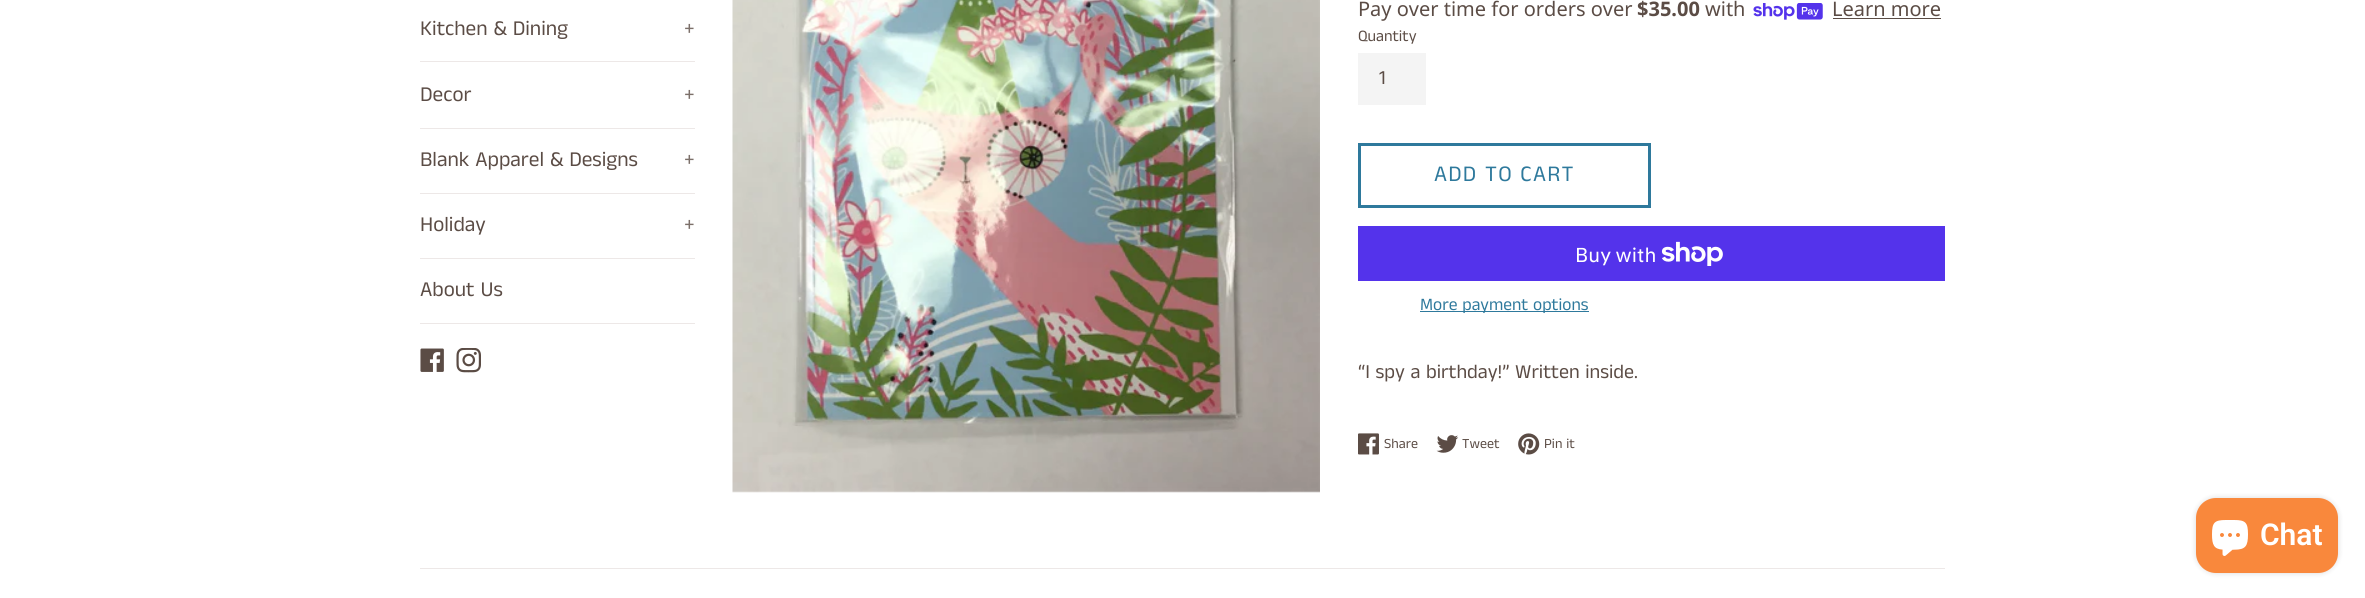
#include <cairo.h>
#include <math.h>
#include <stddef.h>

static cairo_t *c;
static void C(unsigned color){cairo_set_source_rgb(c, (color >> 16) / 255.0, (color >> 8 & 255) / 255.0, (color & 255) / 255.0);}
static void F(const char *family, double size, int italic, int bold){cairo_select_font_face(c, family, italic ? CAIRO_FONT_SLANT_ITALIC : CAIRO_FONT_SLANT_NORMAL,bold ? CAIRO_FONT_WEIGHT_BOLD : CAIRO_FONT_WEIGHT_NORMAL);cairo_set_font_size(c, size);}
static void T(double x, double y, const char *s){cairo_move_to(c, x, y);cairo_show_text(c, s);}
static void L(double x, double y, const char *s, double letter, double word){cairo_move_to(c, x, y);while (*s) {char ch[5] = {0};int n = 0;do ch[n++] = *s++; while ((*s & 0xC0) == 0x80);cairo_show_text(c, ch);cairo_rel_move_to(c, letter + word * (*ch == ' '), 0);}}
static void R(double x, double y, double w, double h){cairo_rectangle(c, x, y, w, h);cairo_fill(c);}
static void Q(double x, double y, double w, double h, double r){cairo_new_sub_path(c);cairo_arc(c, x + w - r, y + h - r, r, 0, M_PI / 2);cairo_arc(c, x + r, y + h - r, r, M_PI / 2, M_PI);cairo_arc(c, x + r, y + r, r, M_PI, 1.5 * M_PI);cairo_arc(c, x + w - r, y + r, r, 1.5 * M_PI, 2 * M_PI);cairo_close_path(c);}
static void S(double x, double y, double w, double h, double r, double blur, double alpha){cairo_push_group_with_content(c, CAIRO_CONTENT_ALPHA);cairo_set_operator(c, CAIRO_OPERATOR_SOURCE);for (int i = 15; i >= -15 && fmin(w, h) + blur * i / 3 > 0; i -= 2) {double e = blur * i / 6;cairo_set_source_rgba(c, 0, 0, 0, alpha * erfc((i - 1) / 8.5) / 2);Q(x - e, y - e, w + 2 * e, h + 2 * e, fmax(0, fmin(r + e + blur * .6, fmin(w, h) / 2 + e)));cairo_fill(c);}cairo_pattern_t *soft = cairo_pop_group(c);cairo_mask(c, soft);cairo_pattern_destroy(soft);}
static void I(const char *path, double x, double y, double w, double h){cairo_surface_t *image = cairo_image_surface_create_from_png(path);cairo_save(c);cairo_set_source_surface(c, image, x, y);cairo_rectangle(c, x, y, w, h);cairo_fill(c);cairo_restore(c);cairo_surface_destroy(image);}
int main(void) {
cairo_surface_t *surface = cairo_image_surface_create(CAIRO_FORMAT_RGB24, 2365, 598);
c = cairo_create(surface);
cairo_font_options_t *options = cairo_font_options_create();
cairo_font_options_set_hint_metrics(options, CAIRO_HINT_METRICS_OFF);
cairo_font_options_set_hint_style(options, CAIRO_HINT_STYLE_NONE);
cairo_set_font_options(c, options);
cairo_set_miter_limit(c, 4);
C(0xffffff);
cairo_paint(c);
C(0xede8e7);
R(420,61,275,1);
F("Anek Tamil",21.25,0,0);
C(0x5b4c45);
T(420,35,"Kitchen & Dining");
C(0x7c706a);
T(684,35,"+");
C(0xede8e7);
R(420,128,275,1);
C(0x5b4c45);
T(420,101,"Decor");
C(0x7c706a);
T(684,101,"+");
C(0xede8e7);
R(420,193,275,1);
C(0x5b4c45);
T(420,166,"Blank Apparel & Designs");
C(0x7c706a);
T(684,166,"+");
C(0xede8e7);
R(420,258,275,1);
C(0x5b4c45);
T(420,231,"Holiday");
C(0x7c706a);
T(684,231,"+");
C(0xede8e7);
R(420,323,275,1);
C(0x5b4c45);
T(420,296,"About Us");
I("1.png",420,348,24,24);
I("2.png",456,348,25,25);
I("3.png",732,0,588,493);
F("Noto Sans",20,0,0);
T(1358,16,"Pay over time for orders over");
F("Noto Sans",20,0,1);
T(1637,16,"$35.00");
F("Noto Sans",20,0,0);
T(1705,16,"with");
I("4.png",1753,3,70,17);
T(1832,16,"Learn more");
R(1833,18,108,1);
F("Anek Tamil",16,0,0);
T(1358,41,"Quantity");
C(0xf4f4f4);
R(1358,53,68,52);
F("Anek Tamil",20,0,0);
C(0x5b4c45);
T(1379,84,"1");
cairo_rectangle(c,1359.5,144.5,290,62);
C(0x2e799c);
cairo_set_line_width(c,3);
cairo_stroke(c);
F("Anek Tamil",22.5,0,0);
L(1434,181,"ADD TO CART",1.25,0);
C(0x5433eb);
R(1358,226,587,55);
F("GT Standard",20,0,0);
C(0xffffff);
T(1575,262,"Buy with");
I("5.png",1661,241,62,25);
C(0x2e799c);
R(1420,311,169,1);
F("Anek Tamil",17.5,0,0);
T(1420,310,"More payment options");
F("Anek Tamil",20,0,0);
C(0x5b4c45);
T(1358,378,"“I spy a birthday!” Written inside.");
I("6.png",1358,433,21,22);
F("Anek Tamil",14,0,0);
T(1384,448,"Share");
I("7.png",1436,435,23,18);
T(1462,448,"Tweet");
I("8.png",1518,433,22,22);
T(1544,448,"Pin it");
C(0xede8e7);
R(420,568,1525,1);
C(0x000000);
S(2196,498,142,75,20,3,.15);
C(0xf9883c);
Q(2196,498,142,75,20);
cairo_fill(c);
I("9.png",2212,520,36,36);
F("Roboto SemiBold",30,0,0);
C(0xffffff);
T(2260,545,"Chat");
cairo_surface_write_to_png(surface, "o.png");
cairo_font_options_destroy(options);
cairo_destroy(c);
cairo_surface_destroy(surface);
return 0;
}
